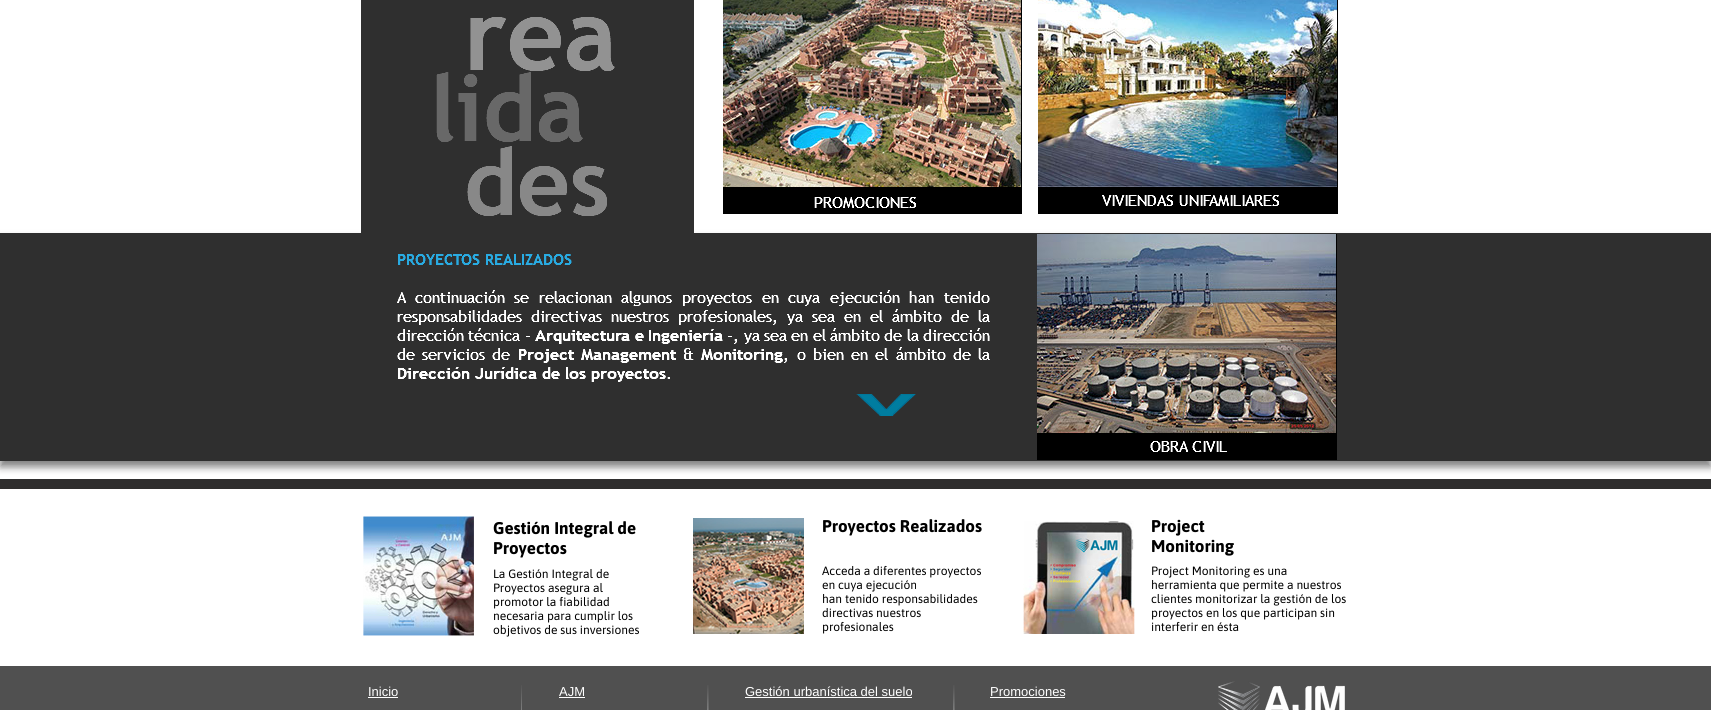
#include <cairo.h>
#include <math.h>
#include <stddef.h>

static cairo_t *c;
static void C(unsigned color){cairo_set_source_rgb(c, (color >> 16) / 255.0, (color >> 8 & 255) / 255.0, (color & 255) / 255.0);}
static void F(const char *family, double size, int italic, int bold){cairo_select_font_face(c, family, italic ? CAIRO_FONT_SLANT_ITALIC : CAIRO_FONT_SLANT_NORMAL,bold ? CAIRO_FONT_WEIGHT_BOLD : CAIRO_FONT_WEIGHT_NORMAL);cairo_set_font_size(c, size);}
static void T(double x, double y, const char *s){cairo_move_to(c, x, y);cairo_show_text(c, s);}
static void R(double x, double y, double w, double h){cairo_rectangle(c, x, y, w, h);cairo_fill(c);}
static void Q(double x, double y, double w, double h, double r){cairo_new_sub_path(c);cairo_arc(c, x + w - r, y + h - r, r, 0, M_PI / 2);cairo_arc(c, x + r, y + h - r, r, M_PI / 2, M_PI);cairo_arc(c, x + r, y + r, r, M_PI, 1.5 * M_PI);cairo_arc(c, x + w - r, y + r, r, 1.5 * M_PI, 2 * M_PI);cairo_close_path(c);}
static void S(double x, double y, double w, double h, double r, double blur, double alpha){cairo_push_group_with_content(c, CAIRO_CONTENT_ALPHA);cairo_set_operator(c, CAIRO_OPERATOR_SOURCE);for (int i = 15; i >= -15 && fmin(w, h) + blur * i / 3 > 0; i -= 2) {double e = blur * i / 6;cairo_set_source_rgba(c, 0, 0, 0, alpha * erfc((i - 1) / 8.5) / 2);Q(x - e, y - e, w + 2 * e, h + 2 * e, fmax(0, fmin(r + e + blur * .6, fmin(w, h) / 2 + e)));cairo_fill(c);}cairo_pattern_t *soft = cairo_pop_group(c);cairo_mask(c, soft);cairo_pattern_destroy(soft);}
static void I(const char *path, double x, double y, double w, double h){cairo_surface_t *image = cairo_image_surface_create_from_png(path);cairo_save(c);cairo_set_source_surface(c, image, x, y);cairo_rectangle(c, x, y, w, h);cairo_fill(c);cairo_restore(c);cairo_surface_destroy(image);}
int main(void) {
cairo_surface_t *surface = cairo_image_surface_create(CAIRO_FORMAT_RGB24, 1711, 710);
c = cairo_create(surface);
cairo_font_options_t *options = cairo_font_options_create();
cairo_font_options_set_hint_metrics(options, CAIRO_HINT_METRICS_OFF);
cairo_font_options_set_hint_style(options, CAIRO_HINT_STYLE_NONE);
cairo_set_font_options(c, options);
cairo_set_miter_limit(c, 4);
C(0xffffff);
cairo_paint(c);
C(0x2f2e2e);
R(0,479,1711,10);
C(0x000000);
S(0,239,1711,228,0,4,.5);
C(0x2f2f2f);
R(361,0,333,233);
I("1.png",470,17,145,54);
I("2.png",436,72,147,70);
I("3.png",467,146,140,70);
C(0x000000);
R(723,0,299,214);
I("4.png",723,0,298,187);
R(1038,0,300,214);
I("5.png",1102,195,177,11);
I("6.png",1038,0,299,187);
I("7.png",814,197,102,11);
C(0x2f2f2f);
R(0,233,1711,228);
I("8.png",398,254,174,11);
I("9.png",397,290,593,92);
I("10.png",856,394,60,22);
C(0x000000);
R(1037,234,300,226);
I("11.png",1150,441,77,11);
I("12.png",1037,234,299,199);
I("13.png",363,516,111,120);
F("Asap",17,0,1);
T(493,534,"Gestión Integral de");
T(493,554,"Proyectos");
F("Asap",12,0,0);
T(493,578,"La Gestión Integral de");
T(493,592,"Proyectos asegura al");
T(493,606,"promotor la fiabilidad");
T(493,620,"necesaria para cumplir los");
T(493,634,"objetivos de sus inversiones");
I("14.png",693,518,111,116);
F("Asap",17,0,1);
T(822,532,"Proyectos Realizados");
F("Asap",12,0,0);
T(822,575,"Acceda a diferentes proyectos");
T(822,589,"en cuya ejecución");
T(822,603,"han tenido responsabilidades");
T(822,617,"directivas nuestros");
T(822,631,"profesionales");
I("15.png",1023,521,112,113);
F("Asap",17,0,1);
T(1151,532,"Project");
T(1151,552,"Monitoring");
F("Asap",12,0,0);
T(1151,575,"Project Monitoring es una");
T(1151,589,"herramienta que permite a nuestros");
T(1151,603,"clientes monitorizar la gestión de los");
T(1151,617,"proyectos en los que participan sin");
T(1151,631,"interferir en ésta");
C(0x505050);
R(0,666,1711,44);
F("Liberation Sans",13,0,0);
C(0xffffff);
T(368,696,"Inicio");
R(368,697,30,1);
I("16.png",521,685,1,25);
T(559,696,"AJM");
R(559,697,26,1);
I("17.png",707,685,2,25);
T(745,696,"Gestión urbanística del suelo");
R(745,697,167,1);
I("17.png",953,685,2,25);
T(990,696,"Promociones");
R(990,697,75,1);
I("18.png",1218,681,127,29);
cairo_surface_write_to_png(surface, "o.png");
cairo_font_options_destroy(options);
cairo_destroy(c);
cairo_surface_destroy(surface);
return 0;
}
